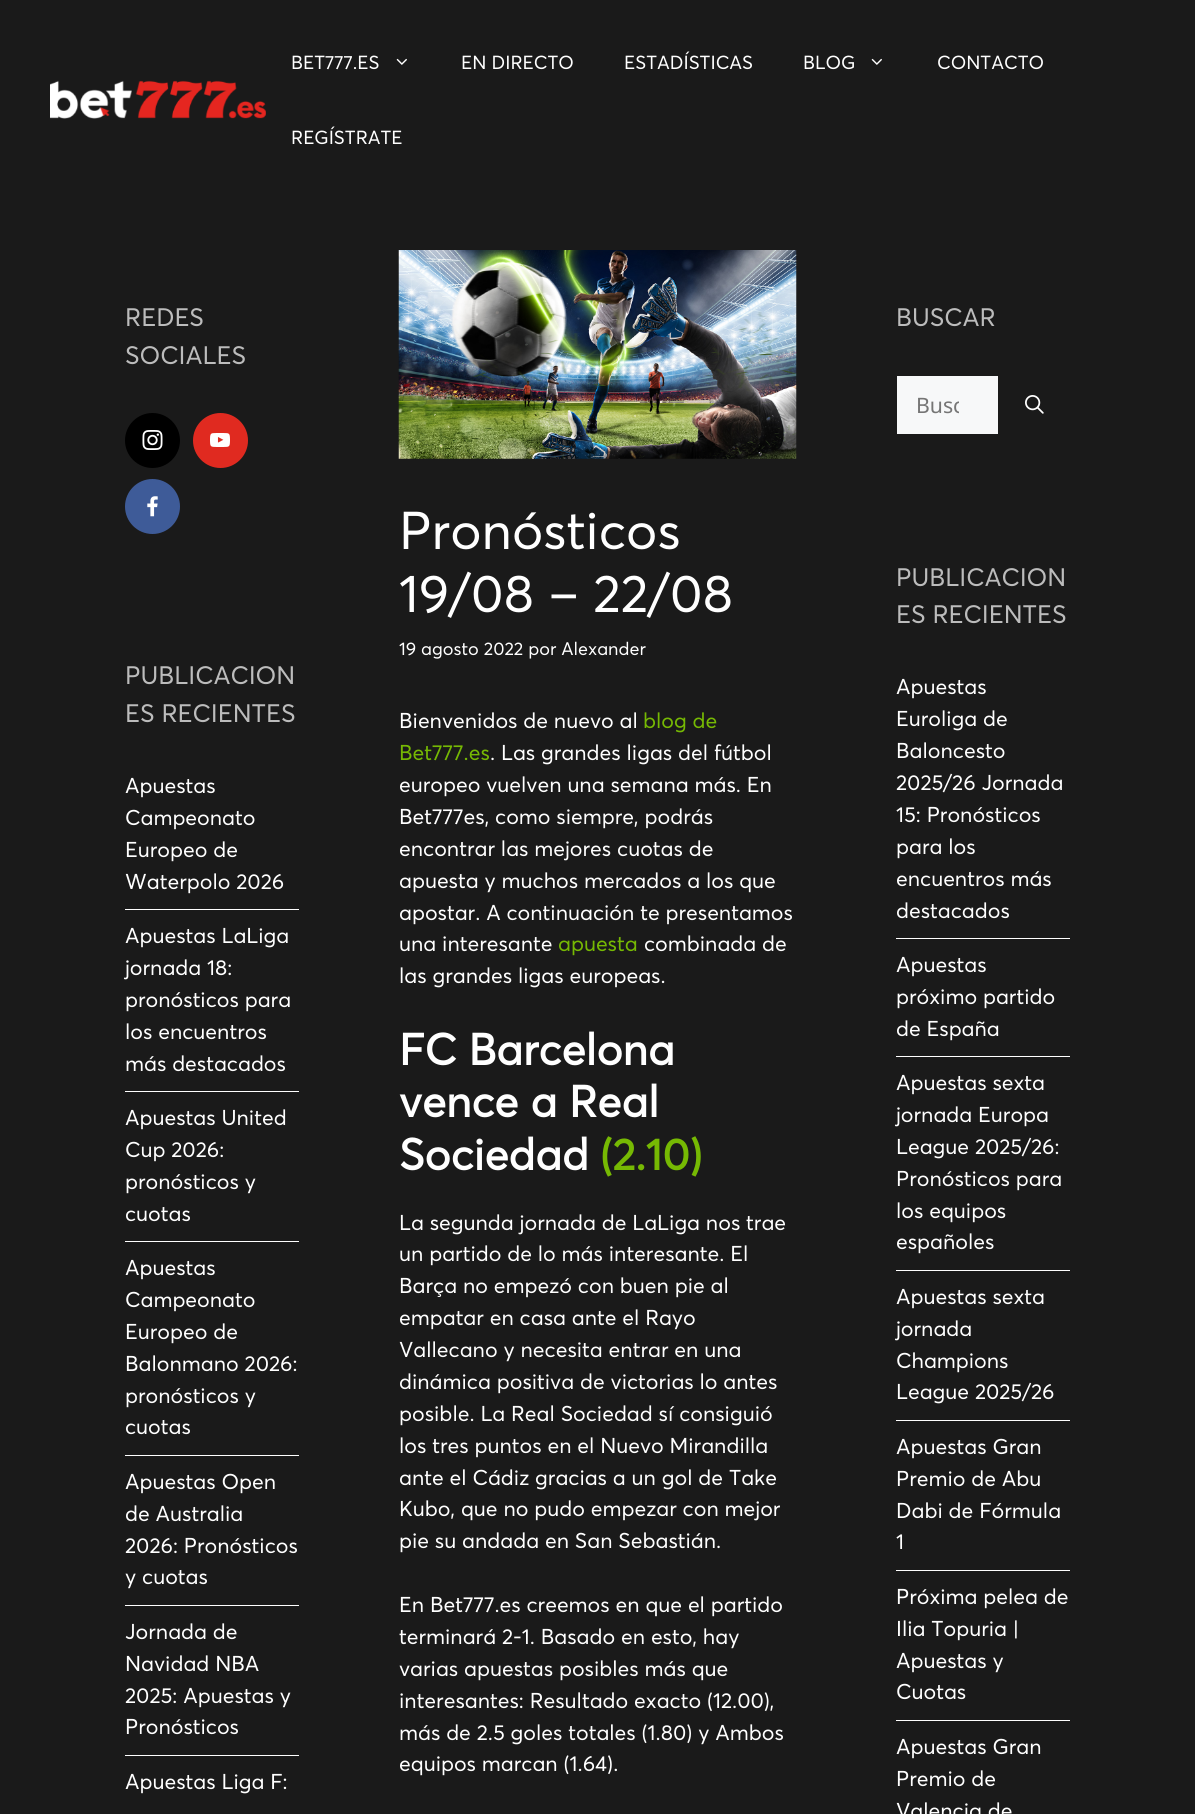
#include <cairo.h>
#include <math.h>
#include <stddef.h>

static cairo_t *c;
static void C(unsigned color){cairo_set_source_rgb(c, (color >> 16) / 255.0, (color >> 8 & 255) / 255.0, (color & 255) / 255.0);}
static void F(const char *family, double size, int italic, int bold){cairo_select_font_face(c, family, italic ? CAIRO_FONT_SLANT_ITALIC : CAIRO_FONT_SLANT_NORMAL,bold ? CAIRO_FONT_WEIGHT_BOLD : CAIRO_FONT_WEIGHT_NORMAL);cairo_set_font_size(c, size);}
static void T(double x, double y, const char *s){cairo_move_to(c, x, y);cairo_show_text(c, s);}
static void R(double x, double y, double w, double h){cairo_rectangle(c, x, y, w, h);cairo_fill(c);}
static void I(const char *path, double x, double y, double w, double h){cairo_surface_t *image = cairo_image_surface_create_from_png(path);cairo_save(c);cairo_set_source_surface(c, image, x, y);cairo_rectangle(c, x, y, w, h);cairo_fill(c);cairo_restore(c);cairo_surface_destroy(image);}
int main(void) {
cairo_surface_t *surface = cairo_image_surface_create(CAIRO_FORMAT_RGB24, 1195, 1814);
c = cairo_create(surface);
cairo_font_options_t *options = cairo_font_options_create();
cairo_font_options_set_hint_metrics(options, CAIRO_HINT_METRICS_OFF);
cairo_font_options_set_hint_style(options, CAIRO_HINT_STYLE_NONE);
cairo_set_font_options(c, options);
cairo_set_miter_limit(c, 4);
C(0x1a1a1a);
cairo_paint(c);
I("1.png",50,80,216,39);
F("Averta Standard",18.75,0,0);
C(0xffffff);
T(291,69,"BET777.ES");
I("2.png",396,58,11,7);
T(461,69,"EN DIRECTO");
T(624,69,"ESTADÍSTICAS");
T(803,69,"BLOG");
I("2.png",871,58,11,7);
T(937,69,"CONTACTO");
T(291,144,"REGÍSTRATE");
F("Averta Standard",25,0,0);
C(0xbcbcbc);
T(125,326,"REDES");
T(125,364,"SOCIALES");
C(0x000000);
cairo_new_path(c);
cairo_arc(c,152.5,440.5,27.5,0,2 * M_PI);
cairo_fill(c);
I("3.png",142,430,21,20);
C(0xe02a20);
cairo_arc(c,220.5,440.5,27.5,0,2 * M_PI);
cairo_fill(c);
I("4.png",210,433,20,14);
C(0x3e5b98);
cairo_arc(c,152.5,506.5,27.5,0,2 * M_PI);
cairo_fill(c);
I("5.png",147,496,11,21);
C(0xbcbcbc);
T(125,684,"PUBLICACION");
T(125,722,"ES RECIENTES");
C(0xffffff);
R(125,909,174,1);
F("Averta Standard",21.25,0,0);
T(125,793,"Apuestas");
T(125,825,"Campeonato");
T(125,857,"Europeo de");
T(125,889,"Waterpolo 2026");
R(125,1091,174,1);
T(125,943,"Apuestas LaLiga");
T(125,975,"jornada 18:");
T(125,1007,"pronósticos para");
T(125,1039,"los encuentros");
T(125,1071,"más destacados");
R(125,1241,174,1);
T(125,1125,"Apuestas United");
T(125,1157,"Cup 2026:");
T(125,1189,"pronósticos y");
T(125,1221,"cuotas");
R(125,1455,174,1);
T(125,1275,"Apuestas");
T(125,1307,"Campeonato");
T(125,1339,"Europeo de");
T(125,1371,"Balonmano 2026:");
T(125,1403,"pronósticos y");
T(125,1434,"cuotas");
R(125,1605,174,1);
T(125,1489,"Apuestas Open");
T(125,1521,"de Australia");
T(125,1553,"2026: Pronósticos");
T(125,1584,"y cuotas");
R(125,1755,174,1);
T(125,1639,"Jornada de");
T(125,1671,"Navidad NBA");
T(125,1703,"2025: Apuestas y");
T(125,1734,"Pronósticos");
T(125,1789,"Apuestas Liga F:");
I("6.png",398,250,399,209);
F("Averta Standard",52.5,0,0);
T(399,549,"Pronósticos");
T(399,612,"19/08 – 22/08");
F("Averta Standard",18,0,0);
T(399,655,"19 agosto 2022 por Alexander");
F("Averta Standard",21.25,0,0);
T(399,728,"Bienvenidos de nuevo al");
C(0x76b903);
T(643,728,"blog de");
T(399,760,"Bet777.es");
C(0xffffff);
T(490,760,". Las grandes ligas del fútbol");
T(399,792,"europeo vuelven una semana más. En");
T(399,824,"Bet777es, como siempre, podrás");
T(399,856,"encontrar las mejores cuotas de");
T(399,888,"apuesta y muchos mercados a los que");
T(399,920,"apostar. A continuación te presentamos");
T(399,951,"una interesante");
C(0x76b903);
T(558,951,"apuesta");
C(0xffffff);
T(644,951,"combinada de");
T(399,983,"las grandes ligas europeas.");
F("Averta Standard",43.75,0,1);
T(399,1065,"FC Barcelona");
T(399,1117,"vence a Real");
T(399,1170,"Sociedad");
C(0x76b903);
T(600,1170,"(2.10)");
F("Averta Standard",21.25,0,0);
C(0xffffff);
T(399,1230,"La segunda jornada de LaLiga nos trae");
T(399,1261,"un partido de lo más interesante. El");
T(399,1293,"Barça no empezó con buen pie al");
T(399,1325,"empatar en casa ante el Rayo");
T(399,1357,"Vallecano y necesita entrar en una");
T(399,1389,"dinámica positiva de victorias lo antes");
T(399,1421,"posible. La Real Sociedad sí consiguió");
T(399,1453,"los tres puntos en el Nuevo Mirandilla");
T(399,1485,"ante el Cádiz gracias a un gol de Take");
T(399,1516,"Kubo, que no pudo empezar con mejor");
T(399,1548,"pie su andada en San Sebastián.");
T(399,1612,"En Bet777.es creemos en que el partido");
T(399,1644,"terminará 2-1. Basado en esto, hay");
T(399,1676,"varias apuestas posibles más que");
T(399,1708,"interesantes: Resultado exacto (12.00),");
T(399,1740,"más de 2.5 goles totales (1.80) y Ambos");
T(399,1771,"equipos marcan (1.64).");
F("Averta Standard",25,0,0);
C(0xbcbcbc);
T(896,326,"BUSCAR");
C(0xf7f8f9);
R(897,376,101,58);
cairo_save(c);
cairo_rectangle(c,916,390,43,29);
cairo_clip(c);
F("Noto Sans",21.25,0,0);
C(0x757575);
T(916,413,"Busc");
cairo_restore(c);
I("7.png",1025,395,19,19);
C(0xbcbcbc);
T(896,586,"PUBLICACION");
T(896,623,"ES RECIENTES");
C(0xffffff);
R(896,938,174,1);
F("Averta Standard",21.25,0,0);
T(896,694,"Apuestas");
T(896,726,"Euroliga de");
T(896,758,"Baloncesto");
T(896,790,"2025/26 Jornada");
T(896,822,"15: Pronósticos");
T(896,854,"para los");
T(896,886,"encuentros más");
T(896,918,"destacados");
R(896,1056,174,1);
T(896,972,"Apuestas");
T(896,1004,"próximo partido");
T(896,1036,"de España");
R(896,1270,174,1);
T(896,1090,"Apuestas sexta");
T(896,1122,"jornada Europa");
T(896,1154,"League 2025/26:");
T(896,1186,"Pronósticos para");
T(896,1218,"los equipos");
T(896,1249,"españoles");
R(896,1420,174,1);
T(896,1304,"Apuestas sexta");
T(896,1336,"jornada");
T(896,1368,"Champions");
T(896,1399,"League 2025/26");
R(896,1570,174,1);
T(896,1454,"Apuestas Gran");
T(896,1486,"Premio de Abu");
T(896,1518,"Dabi de Fórmula");
T(896,1549,"1");
R(896,1720,174,1);
T(896,1604,"Próxima pelea de");
T(896,1636,"Ilia Topuria |");
T(896,1668,"Apuestas y");
T(896,1699,"Cuotas");
T(896,1754,"Apuestas Gran");
T(896,1786,"Premio de");
T(896,1818,"Valencia de");
cairo_surface_write_to_png(surface, "o.png");
cairo_font_options_destroy(options);
cairo_destroy(c);
cairo_surface_destroy(surface);
return 0;
}
